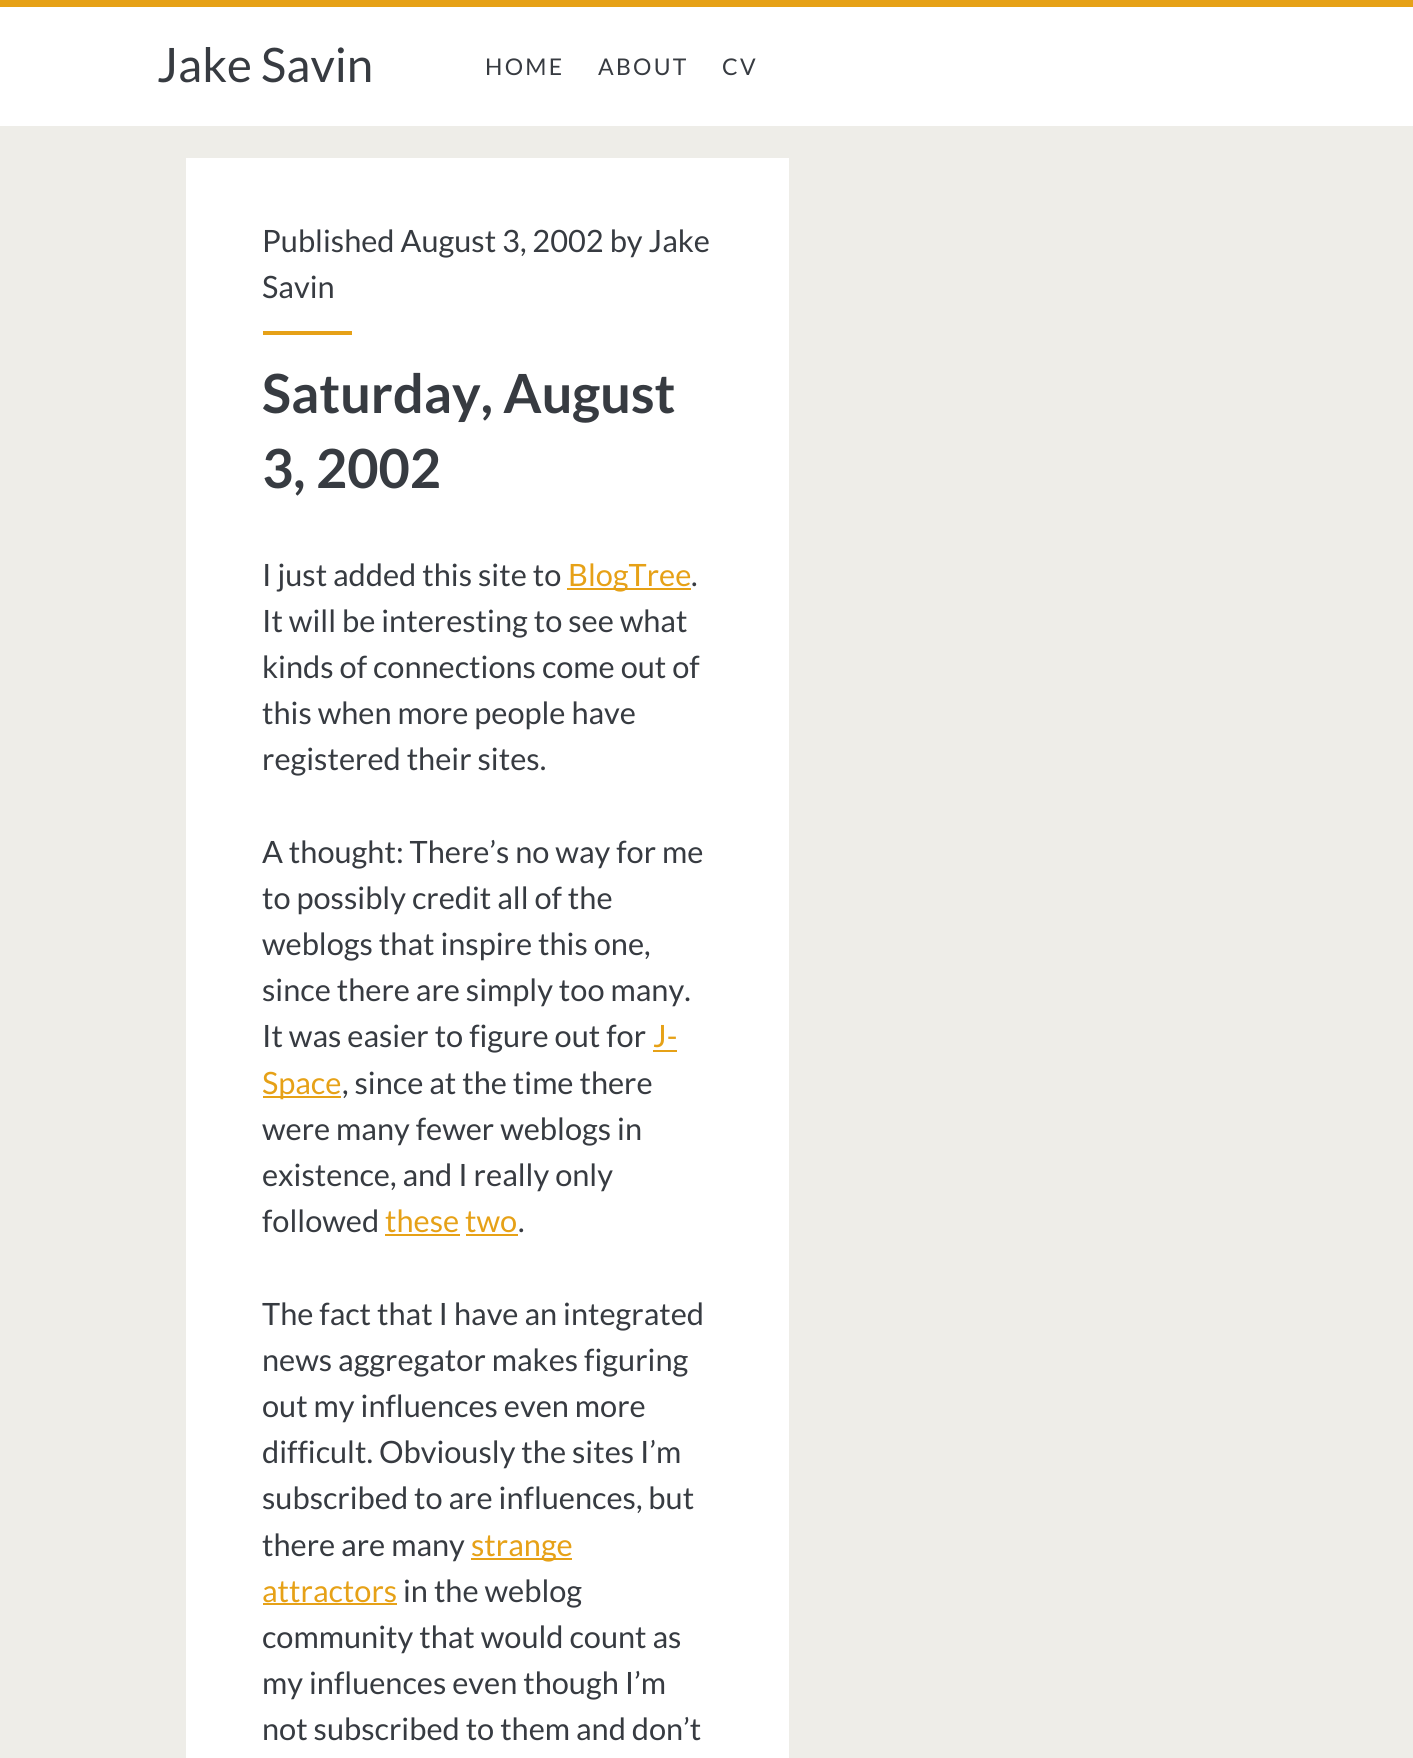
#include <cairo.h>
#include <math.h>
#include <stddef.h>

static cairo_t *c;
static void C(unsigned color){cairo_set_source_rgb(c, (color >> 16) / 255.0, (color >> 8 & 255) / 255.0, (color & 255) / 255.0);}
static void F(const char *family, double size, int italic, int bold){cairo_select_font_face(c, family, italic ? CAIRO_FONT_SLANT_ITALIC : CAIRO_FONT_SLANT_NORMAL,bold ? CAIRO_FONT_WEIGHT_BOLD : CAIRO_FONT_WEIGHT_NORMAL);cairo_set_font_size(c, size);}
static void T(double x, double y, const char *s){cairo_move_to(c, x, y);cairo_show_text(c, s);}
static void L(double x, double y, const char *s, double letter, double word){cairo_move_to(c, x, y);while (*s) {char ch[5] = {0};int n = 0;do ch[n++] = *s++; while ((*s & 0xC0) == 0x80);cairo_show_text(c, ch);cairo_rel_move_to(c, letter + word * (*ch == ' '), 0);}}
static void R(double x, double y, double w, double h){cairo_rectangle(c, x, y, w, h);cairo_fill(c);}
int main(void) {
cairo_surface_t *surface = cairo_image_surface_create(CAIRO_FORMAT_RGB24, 1413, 1758);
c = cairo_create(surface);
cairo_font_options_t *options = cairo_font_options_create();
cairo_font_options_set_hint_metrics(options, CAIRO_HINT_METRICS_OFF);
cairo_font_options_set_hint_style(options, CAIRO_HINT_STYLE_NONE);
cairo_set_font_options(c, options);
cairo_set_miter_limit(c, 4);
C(0xeeede8);
cairo_paint(c);
C(0xffffff);
R(0,7,1413,119);
C(0xe6a117);
R(0,0,1413,7);
F("Lato",47.5,0,0);
C(0x373b41);
T(157,82,"Jake Savin");
F("Lato",23,0,0);
L(485,75,"HOME",2.25,0);
L(598,75,"ABOUT",2.25,0);
L(722,75,"CV",2.25,0);
C(0xffffff);
R(186,158,603,1600);
F("Lato",30.75,0,0);
C(0x373b41);
T(262,252,"Published August 3, 2002 by Jake");
T(262,298,"Savin");
C(0xe6a117);
R(263,331,89,4);
F("Lato",54,0,1);
C(0x373b41);
T(262,413,"Saturday, August");
T(262,488,"3, 2002");
F("Lato",30.75,0,0);
T(262,586,"I just added this site to");
C(0xe6a117);
R(567,588,124,2);
T(568,586,"BlogTree");
C(0x373b41);
T(691,586,".");
T(262,632,"It will be interesting to see what");
T(262,678,"kinds of connections come out of");
T(262,724,"this when more people have");
T(262,770,"registered their sites.");
T(262,863,"A thought: There’s no way for me");
T(262,909,"to possibly credit all of the");
T(262,955,"weblogs that inspire this one,");
T(262,1001,"since there are simply too many.");
T(262,1047,"It was easier to figure out for");
C(0xe6a117);
T(653,1047,"J-");
R(653,1050,24,2);
R(263,1096,78,2);
T(262,1094,"Space");
C(0x373b41);
T(342,1094,", since at the time there");
T(262,1140,"were many fewer weblogs in");
T(262,1186,"existence, and I really only");
T(262,1232,"followed");
C(0xe6a117);
T(385,1232,"these two");
R(385,1234,75,2);
C(0x373b41);
T(518,1232,".");
C(0xe6a117);
R(466,1234,52,2);
C(0x373b41);
T(262,1325,"The fact that I have an integrated");
T(262,1371,"news aggregator makes figuring");
T(262,1417,"out my influences even more");
T(262,1463,"difficult. Obviously the sites I’m");
T(262,1509,"subscribed to are influences, but");
T(262,1556,"there are many");
C(0xe6a117);
R(471,1558,101,2);
T(471,1556,"strange");
T(262,1602,"attractors");
R(263,1603,134,2);
C(0x373b41);
T(403,1602,"in the weblog");
T(262,1648,"community that would count as");
T(262,1694,"my influences even though I’m");
T(262,1740,"not subscribed to them and don’t");
cairo_surface_write_to_png(surface, "o.png");
cairo_font_options_destroy(options);
cairo_destroy(c);
cairo_surface_destroy(surface);
return 0;
}
